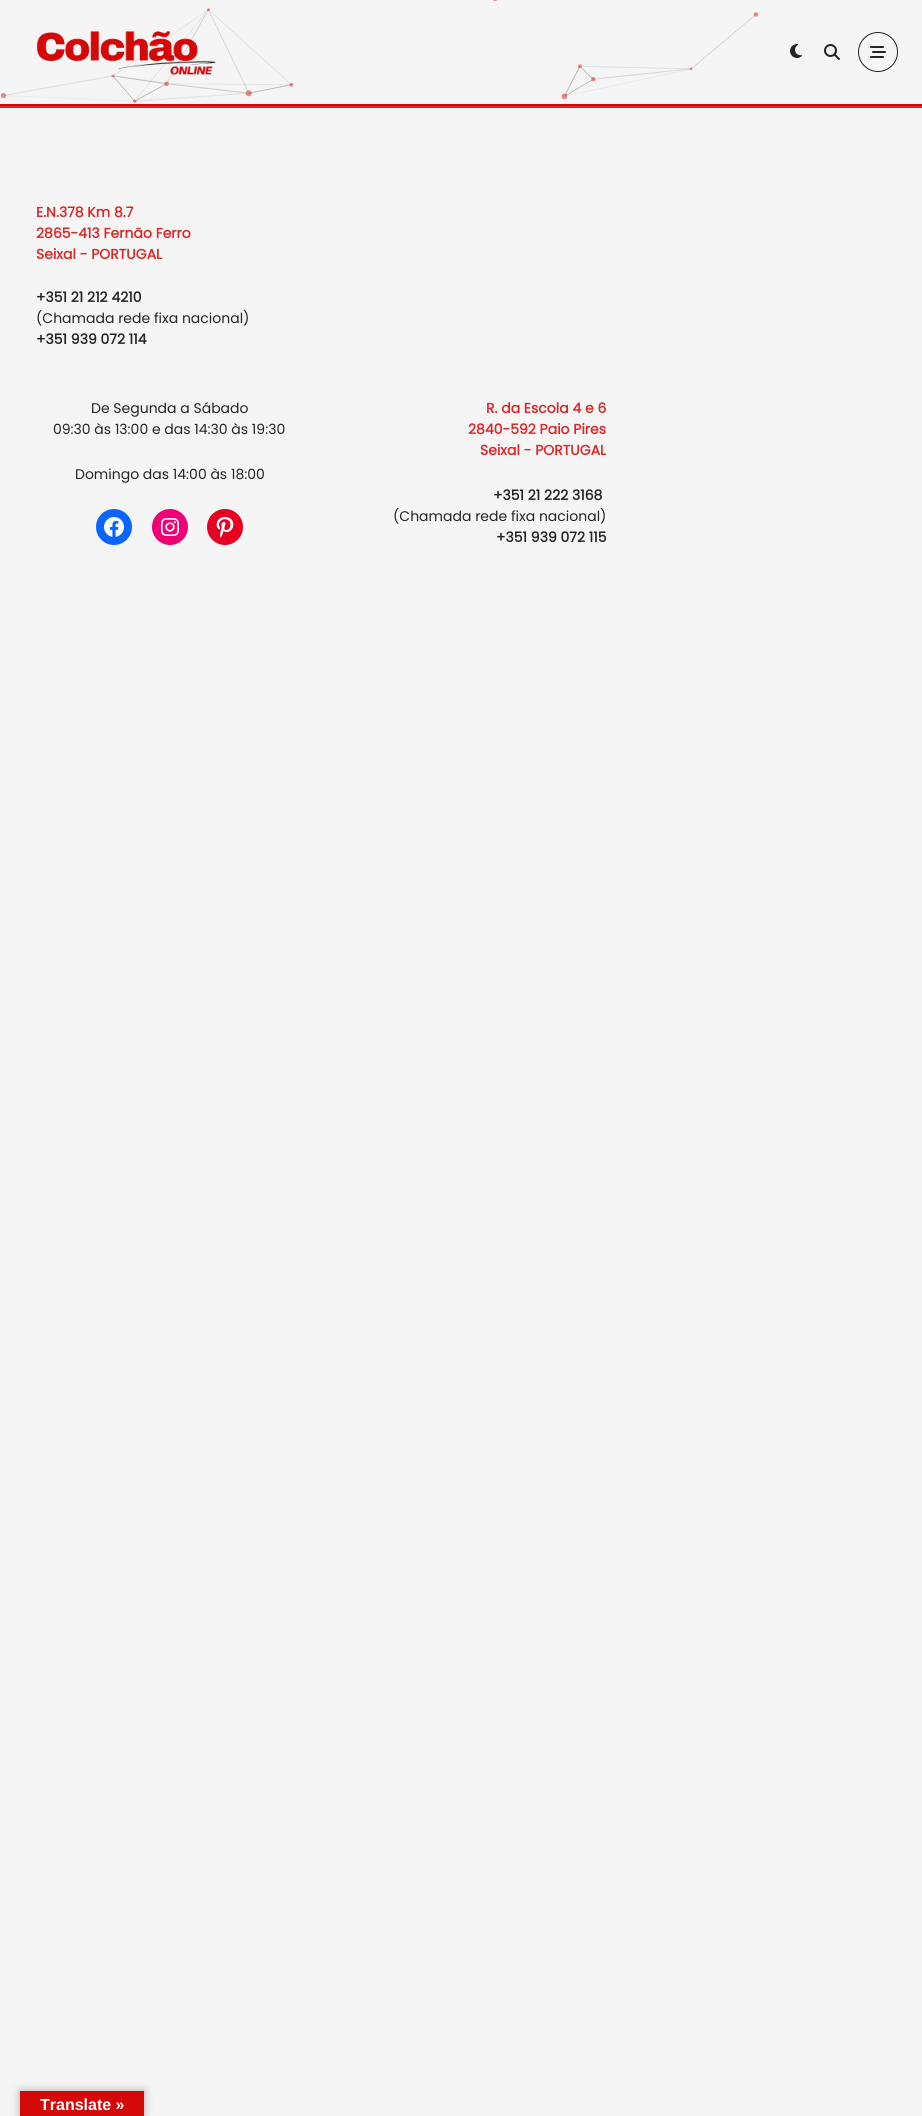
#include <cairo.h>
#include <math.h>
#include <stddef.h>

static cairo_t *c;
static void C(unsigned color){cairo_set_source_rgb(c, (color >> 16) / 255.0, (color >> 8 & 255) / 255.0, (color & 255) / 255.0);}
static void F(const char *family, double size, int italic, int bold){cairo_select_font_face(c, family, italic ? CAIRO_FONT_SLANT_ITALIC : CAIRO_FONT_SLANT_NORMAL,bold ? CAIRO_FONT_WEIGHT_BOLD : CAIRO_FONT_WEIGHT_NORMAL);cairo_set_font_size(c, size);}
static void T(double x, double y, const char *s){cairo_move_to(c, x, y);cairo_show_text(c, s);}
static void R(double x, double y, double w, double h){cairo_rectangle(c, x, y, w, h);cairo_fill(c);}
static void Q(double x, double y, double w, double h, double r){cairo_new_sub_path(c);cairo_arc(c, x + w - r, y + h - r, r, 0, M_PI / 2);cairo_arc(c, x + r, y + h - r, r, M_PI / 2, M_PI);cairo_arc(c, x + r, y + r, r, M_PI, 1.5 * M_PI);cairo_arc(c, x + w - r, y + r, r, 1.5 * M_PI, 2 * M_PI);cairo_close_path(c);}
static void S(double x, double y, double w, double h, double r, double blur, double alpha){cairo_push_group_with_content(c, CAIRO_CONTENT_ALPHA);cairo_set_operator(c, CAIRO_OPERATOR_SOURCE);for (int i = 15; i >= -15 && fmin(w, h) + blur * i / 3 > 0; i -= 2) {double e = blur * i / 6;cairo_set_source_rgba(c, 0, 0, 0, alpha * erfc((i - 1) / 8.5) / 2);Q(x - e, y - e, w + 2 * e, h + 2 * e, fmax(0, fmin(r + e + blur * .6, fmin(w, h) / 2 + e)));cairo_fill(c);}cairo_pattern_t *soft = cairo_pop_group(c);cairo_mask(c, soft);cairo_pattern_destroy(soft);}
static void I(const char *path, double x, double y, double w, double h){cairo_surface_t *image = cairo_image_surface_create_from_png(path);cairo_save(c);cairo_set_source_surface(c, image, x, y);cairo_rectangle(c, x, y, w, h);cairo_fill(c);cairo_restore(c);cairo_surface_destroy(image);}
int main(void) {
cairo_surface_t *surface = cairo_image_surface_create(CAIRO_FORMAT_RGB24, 922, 2116);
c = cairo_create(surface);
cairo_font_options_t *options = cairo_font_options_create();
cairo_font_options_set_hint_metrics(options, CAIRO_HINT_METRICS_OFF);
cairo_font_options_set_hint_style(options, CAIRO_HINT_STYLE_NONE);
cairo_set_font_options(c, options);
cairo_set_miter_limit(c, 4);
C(0xf5f5f5);
cairo_paint(c);
C(0xd40808);
R(0,104,922,2);
I("1.png",0,0,759,103);
I("2.png",36,31,180,44);
I("3.png",790,44,12,14);
I("4.png",824,44,16,16);
cairo_arc(c,878,52,19.5,0,2 * M_PI);
C(0x242424);
cairo_set_line_width(c,1);
cairo_stroke(c);
I("5.png",870,46,16,12);
C(0xdc2626);
R(0,106,922,2);
F("Poppins",14,0,1);
T(36,217,"E.N.378 Km 8.7");
T(36,238,"2865-413 Fernão Ferro");
T(36,259,"Seixal - PORTUGAL");
C(0x242424);
T(36,302,"+351 21 212 4210");
F("Poppins",14,0,0);
T(36,323,"(Chamada rede fixa nacional)");
F("Poppins",14,0,1);
T(36,344,"+351 939 072 114");
F("Poppins",14,0,0);
T(91,413,"De Segunda a Sábado");
T(53,434,"09:30 às 13:00 e das 14:30 às 19:30");
T(75,479,"Domingo das 14:00 às 18:00");
C(0x0866ff);
cairo_new_path(c);
cairo_arc(c,114,527,18,0,2 * M_PI);
cairo_fill(c);
I("6.png",104,517,20,20);
C(0xf00075);
cairo_arc(c,170,527,18,0,2 * M_PI);
cairo_fill(c);
I("7.png",161,518,18,18);
C(0xe60122);
cairo_arc(c,225,527,18,0,2 * M_PI);
cairo_fill(c);
I("8.png",216,517,18,21);
F("Poppins",14,0,1);
C(0xdc2626);
T(486,413,"R. da Escola 4 e 6");
T(468,434,"2840-592 Paio Pires");
T(480,455,"Seixal - PORTUGAL");
C(0x242424);
T(493,500,"+351 21 222 3168");
F("Poppins",14,0,0);
T(393,521,"(Chamada rede fixa nacional)");
F("Poppins",14,0,1);
T(496,542,"+351 939 072 115");
C(0x000000);
S(20,2091,124,25,0,4.5,.3);
C(0xd40808);
R(20,2091,124,25);
F("Liberation Sans",16,0,1);
C(0xffffff);
T(40,2110,"Translate »");
cairo_surface_write_to_png(surface, "o.png");
cairo_font_options_destroy(options);
cairo_destroy(c);
cairo_surface_destroy(surface);
return 0;
}
